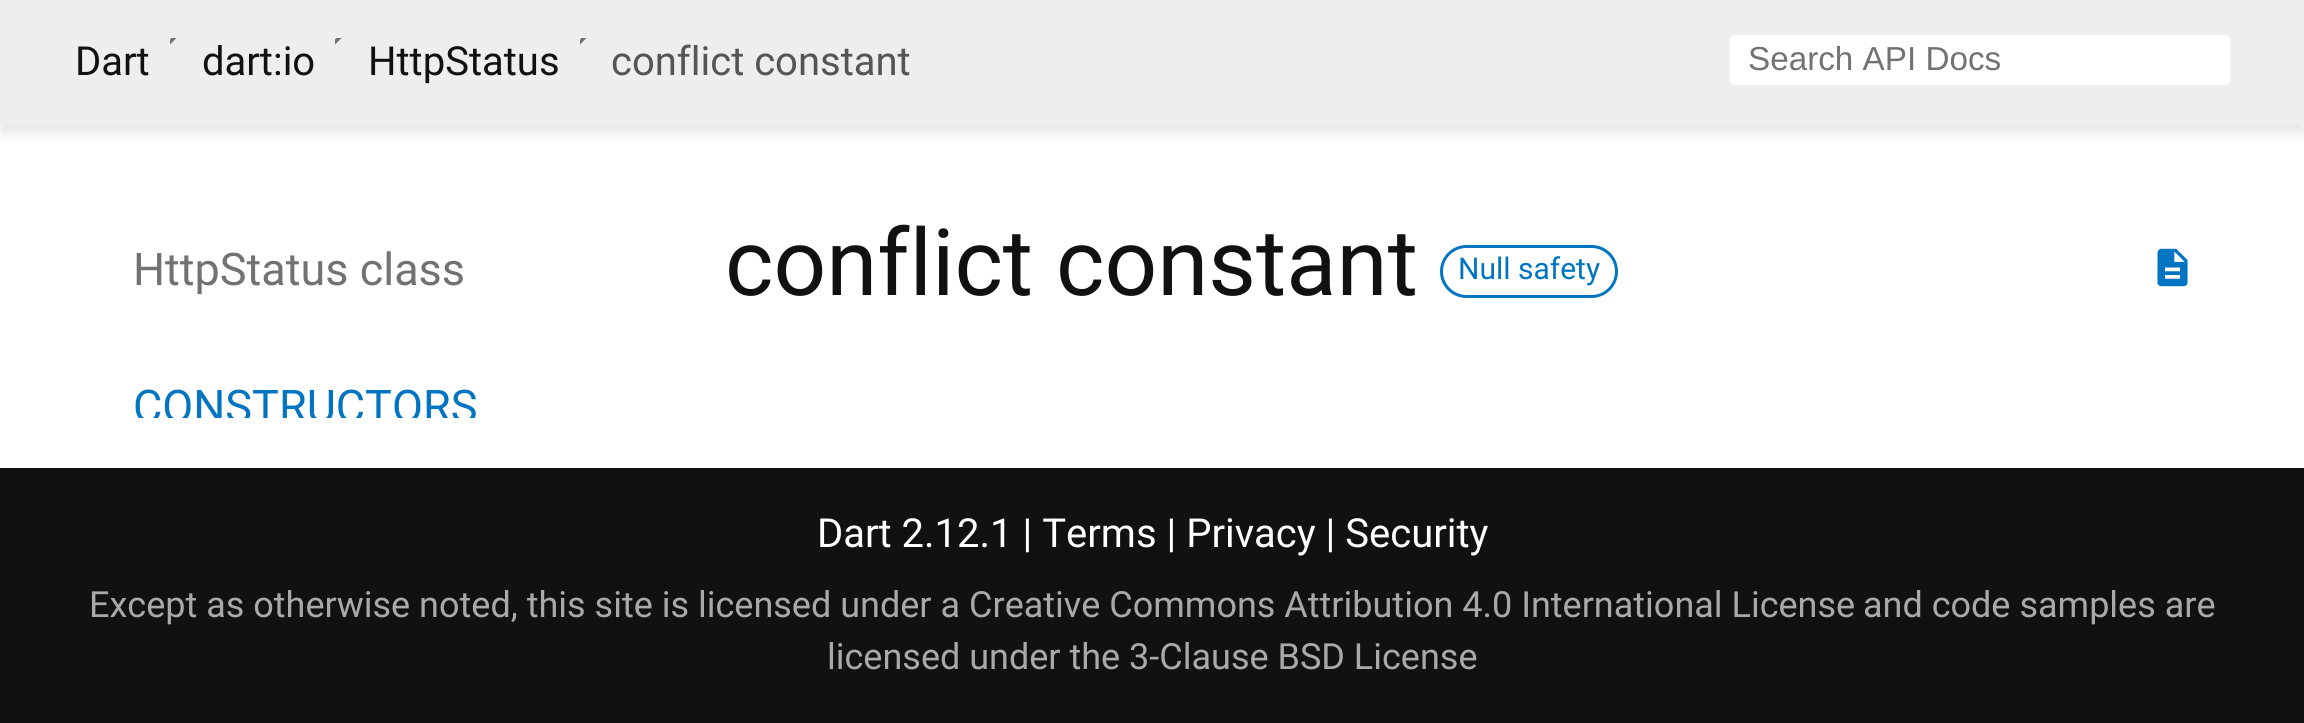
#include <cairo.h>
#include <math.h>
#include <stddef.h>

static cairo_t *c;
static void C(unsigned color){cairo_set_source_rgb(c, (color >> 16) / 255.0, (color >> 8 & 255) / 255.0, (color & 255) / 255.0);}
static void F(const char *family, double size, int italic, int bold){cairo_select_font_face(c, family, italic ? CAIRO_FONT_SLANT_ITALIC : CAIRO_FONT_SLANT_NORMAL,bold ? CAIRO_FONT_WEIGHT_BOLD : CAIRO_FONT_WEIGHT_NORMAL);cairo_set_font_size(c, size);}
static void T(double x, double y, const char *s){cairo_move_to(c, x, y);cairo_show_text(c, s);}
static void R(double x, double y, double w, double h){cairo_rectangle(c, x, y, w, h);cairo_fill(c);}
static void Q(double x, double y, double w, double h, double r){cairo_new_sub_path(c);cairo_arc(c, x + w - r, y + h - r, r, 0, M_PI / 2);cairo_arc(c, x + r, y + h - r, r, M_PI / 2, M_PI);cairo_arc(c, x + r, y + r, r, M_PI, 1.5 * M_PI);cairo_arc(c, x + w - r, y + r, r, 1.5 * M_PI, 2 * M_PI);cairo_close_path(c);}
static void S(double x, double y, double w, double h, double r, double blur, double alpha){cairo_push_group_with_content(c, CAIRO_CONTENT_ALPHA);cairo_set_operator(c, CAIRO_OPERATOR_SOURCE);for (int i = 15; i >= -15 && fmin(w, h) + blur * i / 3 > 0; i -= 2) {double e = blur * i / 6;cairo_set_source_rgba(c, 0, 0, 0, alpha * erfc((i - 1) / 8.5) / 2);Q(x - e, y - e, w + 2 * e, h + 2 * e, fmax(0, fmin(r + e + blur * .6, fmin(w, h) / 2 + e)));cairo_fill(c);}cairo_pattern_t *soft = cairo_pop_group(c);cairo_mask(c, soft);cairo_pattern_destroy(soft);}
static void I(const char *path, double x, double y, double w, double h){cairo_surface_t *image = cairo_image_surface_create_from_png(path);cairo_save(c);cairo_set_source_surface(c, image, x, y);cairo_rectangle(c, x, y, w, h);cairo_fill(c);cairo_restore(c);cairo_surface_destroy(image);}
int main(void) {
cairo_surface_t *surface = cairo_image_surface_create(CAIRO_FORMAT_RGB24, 2304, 723);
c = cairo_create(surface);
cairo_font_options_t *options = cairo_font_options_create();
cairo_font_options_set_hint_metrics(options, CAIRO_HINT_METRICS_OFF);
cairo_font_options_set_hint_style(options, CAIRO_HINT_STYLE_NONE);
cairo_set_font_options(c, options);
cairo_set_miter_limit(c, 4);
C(0xffffff);
cairo_paint(c);
C(0x000000);
S(0,8,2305,125,0,6,.1);
C(0xeeeeee);
R(0,0,2304,125);
F("Roboto",40,0,0);
C(0x111111);
T(75,75,"Dart");
cairo_save(c);
cairo_rectangle(c,170,38,18,20);
cairo_clip(c);
C(0x727272);
cairo_new_path(c);
cairo_move_to(c,167,27.5);
cairo_line_to(c,164,30);
cairo_line_to(c,172,37.5);
cairo_line_to(c,164,45);
cairo_line_to(c,167,47.5);
cairo_line_to(c,177,37.5);
cairo_close_path(c);
cairo_fill(c);
cairo_restore(c);
T(202,75,"dart:io");
cairo_save(c);
cairo_rectangle(c,335,38,18,20);
cairo_clip(c);
C(0x727272);
cairo_new_path(c);
cairo_move_to(c,332,27.5);
cairo_line_to(c,329,30);
cairo_line_to(c,337,37.5);
cairo_line_to(c,329,45);
cairo_line_to(c,332,47.5);
cairo_line_to(c,342,37.5);
cairo_close_path(c);
cairo_fill(c);
cairo_restore(c);
T(368,75,"HttpStatus");
cairo_save(c);
cairo_rectangle(c,580,38,18,20);
cairo_clip(c);
C(0x727272);
cairo_new_path(c);
cairo_move_to(c,577,27.5);
cairo_line_to(c,574,30);
cairo_line_to(c,582,37.5);
cairo_line_to(c,574,45);
cairo_line_to(c,577,47.5);
cairo_line_to(c,587,37.5);
cairo_close_path(c);
cairo_fill(c);
cairo_restore(c);
C(0x555555);
T(611,75,"conflict constant");
C(0xffffff);
Q(1730,35,500,50,5);
cairo_fill(c);
F("Liberation Sans",33.25,0,0);
C(0x727272);
T(1748,70,"Search API Docs");
F("Roboto",45,0,0);
T(133,285,"HttpStatus class");
cairo_save(c);
cairo_rectangle(c,125,373,500,45);
cairo_clip(c);
C(0x0175c2);
T(133,422,"CONSTRUCTORS");
cairo_restore(c);
F("Roboto",92.5,0,0);
C(0x111111);
T(725,295,"conflict constant");
Q(1441.5,246.5,175,50,25);
C(0x0175c2);
cairo_set_line_width(c,3);
cairo_stroke(c);
F("Roboto",30,0,0);
T(1458,279,"Null safety");
I("1.png",2157,248,31,39);
C(0x111111);
R(0,468,2304,255);
F("Roboto",40,0,0);
C(0xffffff);
T(817,547,"Dart 2.12.1 | Terms | Privacy | Security");
F("Roboto",36,0,0);
C(0xa9a9a9);
T(89,617,"Except as otherwise noted, this site is licensed under a");
T(969,617,"Creative Commons Attribution 4.0 International License");
T(1863,617,"and code samples are");
T(827,669,"licensed under the 3-Clause BSD License");
cairo_surface_write_to_png(surface, "o.png");
cairo_font_options_destroy(options);
cairo_destroy(c);
cairo_surface_destroy(surface);
return 0;
}
